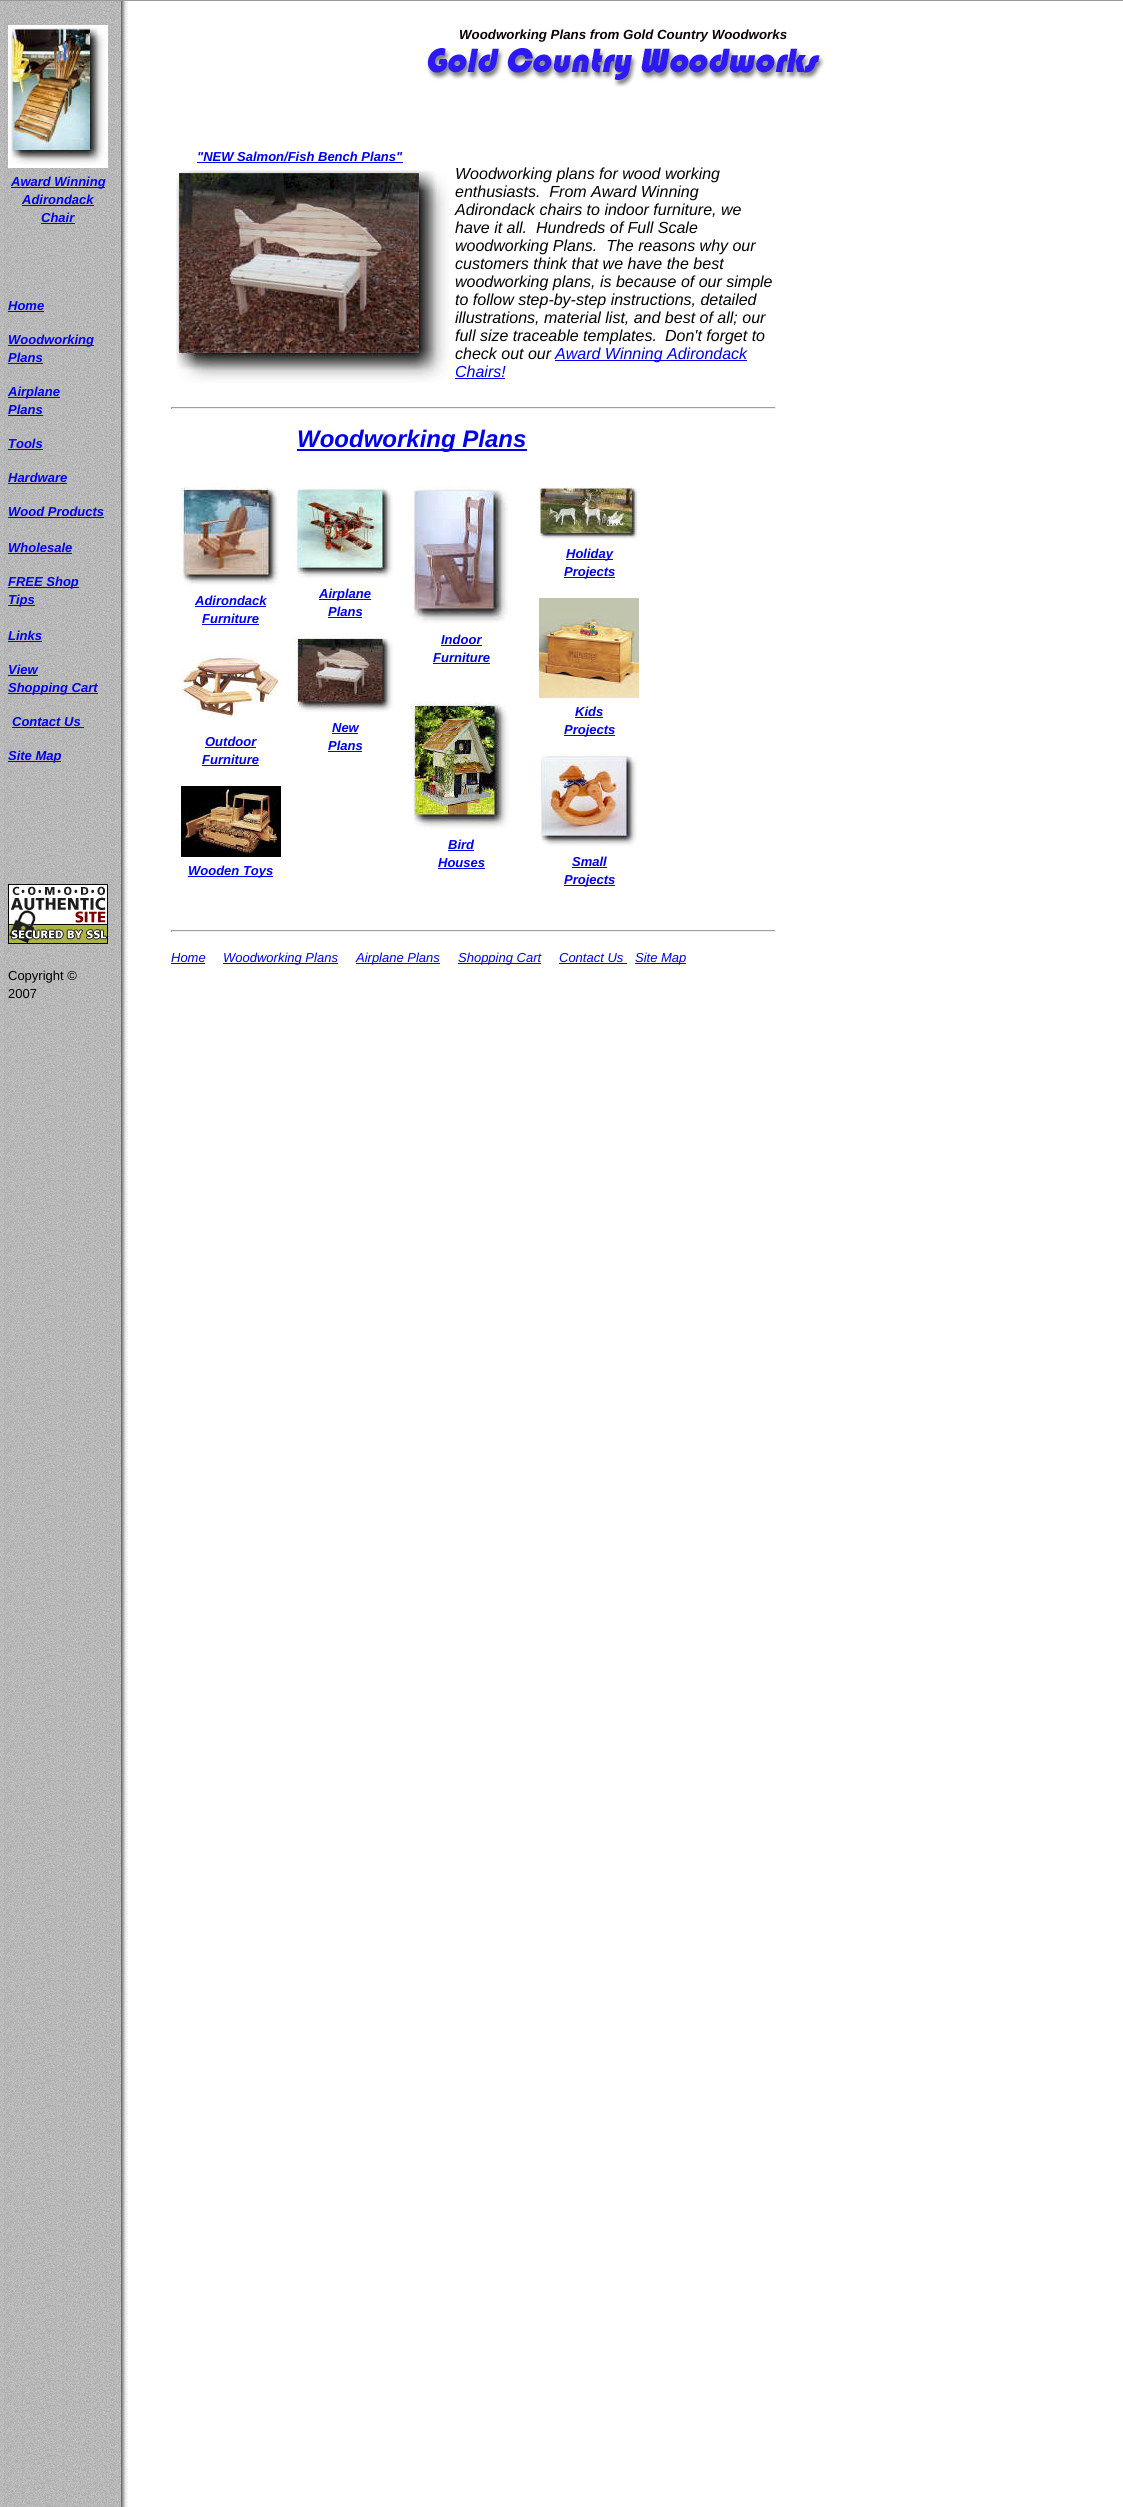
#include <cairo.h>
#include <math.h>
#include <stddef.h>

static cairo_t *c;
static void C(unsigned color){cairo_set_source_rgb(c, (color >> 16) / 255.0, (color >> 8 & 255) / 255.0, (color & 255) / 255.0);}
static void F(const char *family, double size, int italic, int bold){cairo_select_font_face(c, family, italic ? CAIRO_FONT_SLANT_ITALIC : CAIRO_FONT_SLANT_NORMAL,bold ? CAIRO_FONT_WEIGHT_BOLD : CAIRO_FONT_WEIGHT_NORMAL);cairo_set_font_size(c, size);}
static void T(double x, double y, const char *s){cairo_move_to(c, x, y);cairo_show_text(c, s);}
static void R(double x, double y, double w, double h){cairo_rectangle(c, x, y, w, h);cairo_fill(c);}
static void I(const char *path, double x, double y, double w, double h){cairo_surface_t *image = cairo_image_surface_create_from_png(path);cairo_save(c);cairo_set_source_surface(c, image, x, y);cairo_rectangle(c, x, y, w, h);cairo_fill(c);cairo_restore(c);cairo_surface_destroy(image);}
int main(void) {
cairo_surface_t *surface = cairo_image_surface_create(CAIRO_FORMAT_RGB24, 1123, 2507);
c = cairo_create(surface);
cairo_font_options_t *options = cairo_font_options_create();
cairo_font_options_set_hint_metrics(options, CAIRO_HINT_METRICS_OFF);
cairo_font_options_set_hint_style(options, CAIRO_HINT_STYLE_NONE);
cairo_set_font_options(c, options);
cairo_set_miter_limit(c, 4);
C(0xffffff);
cairo_paint(c);
I("1.png",0,1,128,2506);
C(0x999999);
R(0,0,1123,1);
I("2.png",8,25,100,143);
C(0x0000ee);
R(11,187,94,1);
F("Liberation Sans",13,1,1);
T(11,186,"Award Winning");
T(22,204,"Adirondack");
R(22,205,72,1);
T(41,222,"Chair");
R(41,223,34,1);
T(8,310,"Home");
R(8,311,36,1);
R(8,345,86,1);
T(8,344,"Woodworking");
T(8,362,"Plans");
R(8,363,35,1);
R(8,397,52,1);
T(8,396,"Airplane");
T(8,414,"Plans");
R(8,415,35,1);
T(8,448,"Tools");
R(8,449,35,1);
T(8,482,"Hardware");
R(8,483,59,1);
T(8,516,"Wood Products");
R(8,517,96,1);
T(8,552,"Wholesale");
R(8,553,64,1);
R(8,587,71,1);
T(8,586,"FREE Shop");
R(8,605,27,1);
T(8,604,"Tips");
T(8,640,"Links");
R(8,641,34,1);
T(8,674,"View");
R(8,675,30,1);
R(8,693,90,1);
T(8,692,"Shopping Cart");
T(12,726,"Contact Us");
R(12,727,72,1);
R(8,761,53,1);
T(8,760,"Site Map");
I("3.png",8,884,100,60);
F("Liberation Sans",13,0,0);
C(0x000000);
T(8,980,"Copyright ©");
T(8,998,"2007");
F("Liberation Sans",13.3,1,1);
C(0x0b0000);
T(459,39,"Woodworking Plans from Gold Country Woodworks");
I("4.png",426,48,399,39);
F("Liberation Sans",13,1,1);
C(0x0000ee);
T(197,161,"\"NEW Salmon/Fish Bench Plans\"");
R(197,162,206,1);
I("5.png",176,170,273,213);
F("Liberation Sans",16,1,0);
C(0x000000);
T(455,179,"Woodworking plans for wood working");
T(455,197,"enthusiasts.  From Award Winning");
T(455,215,"Adirondack chairs to indoor furniture, we");
T(455,233,"have it all.  Hundreds of Full Scale");
T(455,251,"woodworking Plans.  The reasons why our");
T(455,269,"customers think that we have the best");
T(455,287,"woodworking plans, is because of our simple");
T(455,305,"to follow step-by-step instructions, detailed");
T(455,323,"illustrations, material list, and best of all; our");
T(455,341,"full size traceable templates.");
T(665,341,"Don't forget to");
T(455,359,"check out our");
C(0x0000ee);
R(555,360,192,1);
T(555,359,"Award Winning Adirondack");
T(455,377,"Chairs!");
R(455,378,50,1);
C(0x9f9f9f);
R(171,407,605,1);
C(0xeeeeee);
R(775,407,1,2);
R(171,408,605,1);
C(0x9f9f9f);
R(171,407,1,2);
C(0x0000ee);
R(297,449,230,2);
F("Liberation Sans",24,1,1);
T(297,447,"Woodworking Plans");
I("6.png",181,487,98,98);
F("Liberation Sans",13,1,1);
T(195,605,"Adirondack");
R(195,606,71,1);
T(202,623,"Furniture");
R(202,624,57,1);
I("7.png",181,655,100,63);
T(205,746,"Outdoor");
R(205,747,51,1);
T(202,764,"Furniture");
R(202,765,57,1);
I("8.png",181,786,100,71);
R(188,876,85,1);
T(188,875,"Wooden Toys");
I("9.png",295,487,98,91);
R(319,599,52,1);
T(319,598,"Airplane");
T(328,616,"Plans");
R(328,617,34,1);
I("10.png",295,636,98,76);
T(332,732,"New");
R(332,733,26,1);
T(328,750,"Plans");
R(328,751,34,1);
I("11.png",411,487,97,136);
T(441,644,"Indoor");
R(441,645,41,1);
T(433,662,"Furniture");
R(433,663,57,1);
I("12.png",411,702,98,127);
T(448,849,"Bird");
R(448,850,26,1);
T(438,867,"Houses");
R(438,868,47,1);
I("13.png",539,487,99,52);
R(566,559,47,1);
T(566,558,"Holiday");
R(564,577,51,1);
T(564,576,"Projects");
I("14.png",539,598,100,100);
T(575,716,"Kids");
R(575,717,28,1);
R(564,735,51,1);
T(564,734,"Projects");
I("15.png",539,754,98,92);
T(572,866,"Small");
R(572,867,35,1);
R(564,885,51,1);
T(564,884,"Projects");
C(0x9f9f9f);
R(171,930,605,1);
C(0xeeeeee);
R(775,930,1,2);
R(171,931,605,1);
C(0x9f9f9f);
R(171,930,1,2);
F("Liberation Sans",13,1,0);
C(0x0000ee);
T(171,962,"Home");
R(171,963,34,1);
R(223,963,115,1);
T(223,962,"Woodworking Plans");
R(356,963,84,1);
T(356,962,"Airplane Plans");
R(458,963,83,1);
T(458,962,"Shopping Cart");
T(559,962,"Contact Us");
R(559,963,68,1);
R(635,963,51,1);
T(635,962,"Site Map");
cairo_surface_write_to_png(surface, "o.png");
cairo_font_options_destroy(options);
cairo_destroy(c);
cairo_surface_destroy(surface);
return 0;
}
